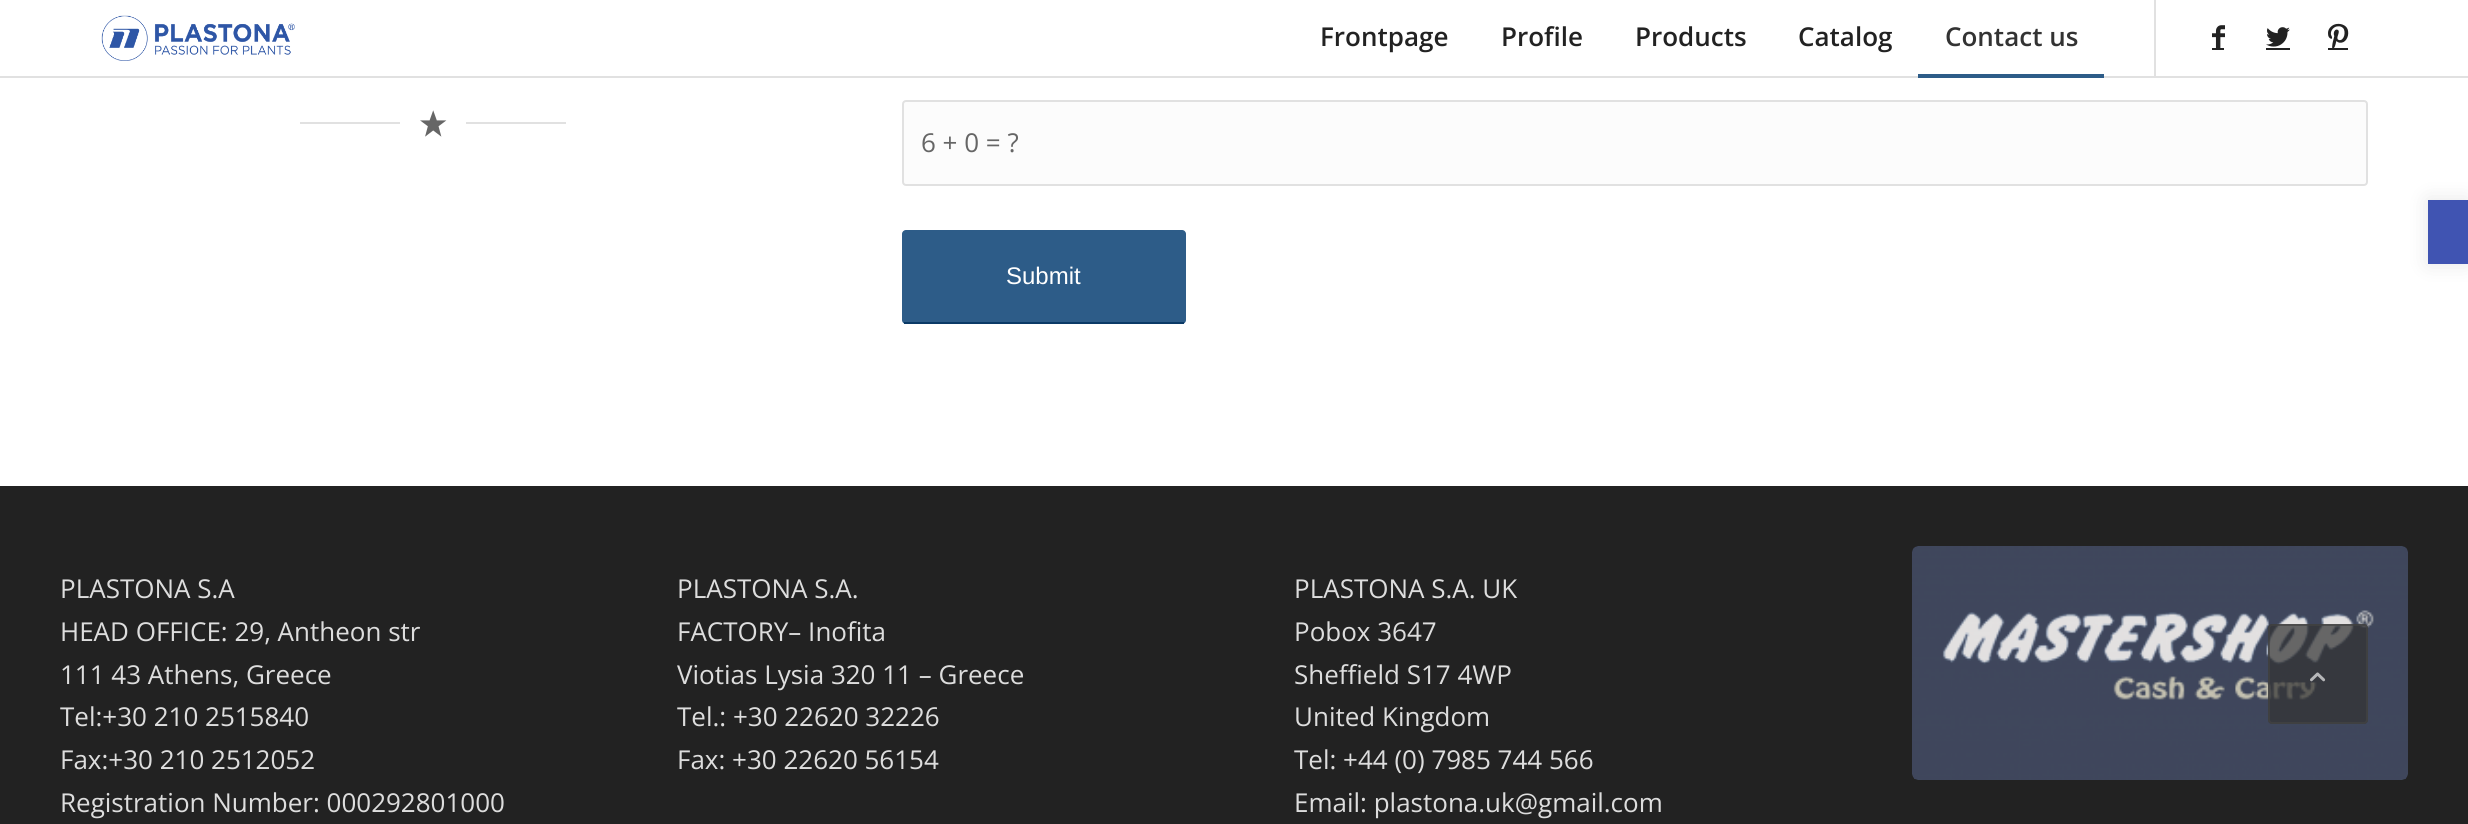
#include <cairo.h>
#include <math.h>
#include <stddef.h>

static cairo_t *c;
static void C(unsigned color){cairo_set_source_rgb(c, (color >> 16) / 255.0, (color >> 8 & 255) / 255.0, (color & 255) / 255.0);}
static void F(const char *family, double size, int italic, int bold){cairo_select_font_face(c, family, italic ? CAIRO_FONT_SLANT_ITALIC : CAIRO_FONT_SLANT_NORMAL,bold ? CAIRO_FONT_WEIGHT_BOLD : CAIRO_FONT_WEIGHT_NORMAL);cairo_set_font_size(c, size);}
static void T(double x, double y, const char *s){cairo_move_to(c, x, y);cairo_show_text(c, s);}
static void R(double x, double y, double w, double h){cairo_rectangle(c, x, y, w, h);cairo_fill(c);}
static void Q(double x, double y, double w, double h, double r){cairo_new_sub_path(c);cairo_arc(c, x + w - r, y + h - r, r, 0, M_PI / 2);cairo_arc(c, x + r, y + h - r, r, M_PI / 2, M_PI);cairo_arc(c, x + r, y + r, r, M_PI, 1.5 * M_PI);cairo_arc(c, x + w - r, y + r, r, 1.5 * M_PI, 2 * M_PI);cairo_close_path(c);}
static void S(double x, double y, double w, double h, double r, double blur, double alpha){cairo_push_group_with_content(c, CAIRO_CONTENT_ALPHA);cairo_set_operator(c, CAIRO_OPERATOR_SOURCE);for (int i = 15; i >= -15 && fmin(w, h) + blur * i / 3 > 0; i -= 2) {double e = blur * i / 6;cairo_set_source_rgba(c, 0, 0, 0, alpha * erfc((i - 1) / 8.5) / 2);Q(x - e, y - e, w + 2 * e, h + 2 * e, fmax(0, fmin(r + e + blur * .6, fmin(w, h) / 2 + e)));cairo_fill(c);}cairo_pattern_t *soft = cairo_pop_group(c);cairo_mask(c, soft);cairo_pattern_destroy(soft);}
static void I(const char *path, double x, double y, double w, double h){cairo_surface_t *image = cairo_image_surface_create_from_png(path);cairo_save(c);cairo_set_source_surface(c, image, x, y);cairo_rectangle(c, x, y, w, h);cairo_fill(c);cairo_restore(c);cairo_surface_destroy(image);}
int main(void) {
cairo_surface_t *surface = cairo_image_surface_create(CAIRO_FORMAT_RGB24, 2468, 824);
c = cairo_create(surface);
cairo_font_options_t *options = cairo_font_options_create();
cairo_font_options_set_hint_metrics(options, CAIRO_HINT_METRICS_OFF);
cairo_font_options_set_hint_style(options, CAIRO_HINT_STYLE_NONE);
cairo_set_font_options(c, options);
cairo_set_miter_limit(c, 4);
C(0xffffff);
cairo_paint(c);
C(0xe1e1e1);
R(0,76,2468,2);
I("1.png",101,15,194,46);
R(2154,0,2,76);
F("Open Sans SemiBold",26,0,0);
C(0x222222);
T(1320,46,"Frontpage");
T(1501,46,"Profile");
T(1635,46,"Products");
T(1798,46,"Catalog");
C(0x333333);
T(1945,46,"Contact us");
C(0x2d5c88);
R(1918,74,186,4);
I("2.png",2212,25,13,23);
C(0x222222);
R(2212,48,12,2);
I("3.png",2266,27,24,20);
R(2266,48,24,2);
I("4.png",2328,23,21,25);
R(2328,48,20,2);
C(0xe1e1e1);
R(300,122,100,2);
I("5.png",420,110,27,27);
R(466,122,100,2);
C(0xfcfcfc);
Q(903,101,1464,84,3);
cairo_fill_preserve(c);
C(0xe1e1e1);
cairo_stroke(c);
F("Open Sans",26,0,0);
C(0x666666);
T(921,152,"6 + 0 = ?");
C(0x2d5c88);
Q(902,230,284,94,4);
cairo_fill(c);
C(0x0b3a66);
R(904,322,280,2);
F("Liberation Sans",24,0,0);
C(0xffffff);
T(1006,284,"Submit");
C(0x222222);
R(0,486,2468,338);
F("Open Sans",26,0,0);
C(0xdddddd);
T(60,598,"PLASTONA S.A");
T(60,641,"HEAD OFFICE: 29, Antheon str");
T(60,684,"111 43 Athens, Greece");
T(60,726,"Τel:+30 210 2515840");
T(60,769,"Fax:+30 210 2512052");
T(60,812,"Registration Number: 000292801000");
T(677,598,"PLASTONA S.A.");
T(677,641,"FACTORY– Inofita");
T(677,684,"Viotias Lysia 320 11 – Greece");
T(677,726,"Τel.: +30 22620 32226");
T(677,769,"Fax: +30 22620 56154");
T(1294,598,"PLASTONA S.A. UK");
T(1294,641,"Pobox 3647");
T(1294,684,"Sheffield S17 4WP");
T(1294,726,"United Kingdom");
T(1294,769,"Tel: +44 (0) 7985 744 566");
T(1294,812,"Email: plastona.uk@gmail.com");
I("6.png",1912,546,496,234);
C(0x000000);
S(2428,200,40,64,0,10,.1);
C(0x4054b2);
R(2428,200,40,64);
cairo_set_source_rgba(c,0.2,0.2,0.2,0.7);
Q(2268,624,100,100,4);
cairo_fill(c);
Q(2269,625,98,98,3);
cairo_set_source_rgba(c,0.267,0.267,0.267,0.7);
cairo_stroke(c);
I("7.png",2310,672,16,10);
cairo_surface_write_to_png(surface, "o.png");
cairo_font_options_destroy(options);
cairo_destroy(c);
cairo_surface_destroy(surface);
return 0;
}
